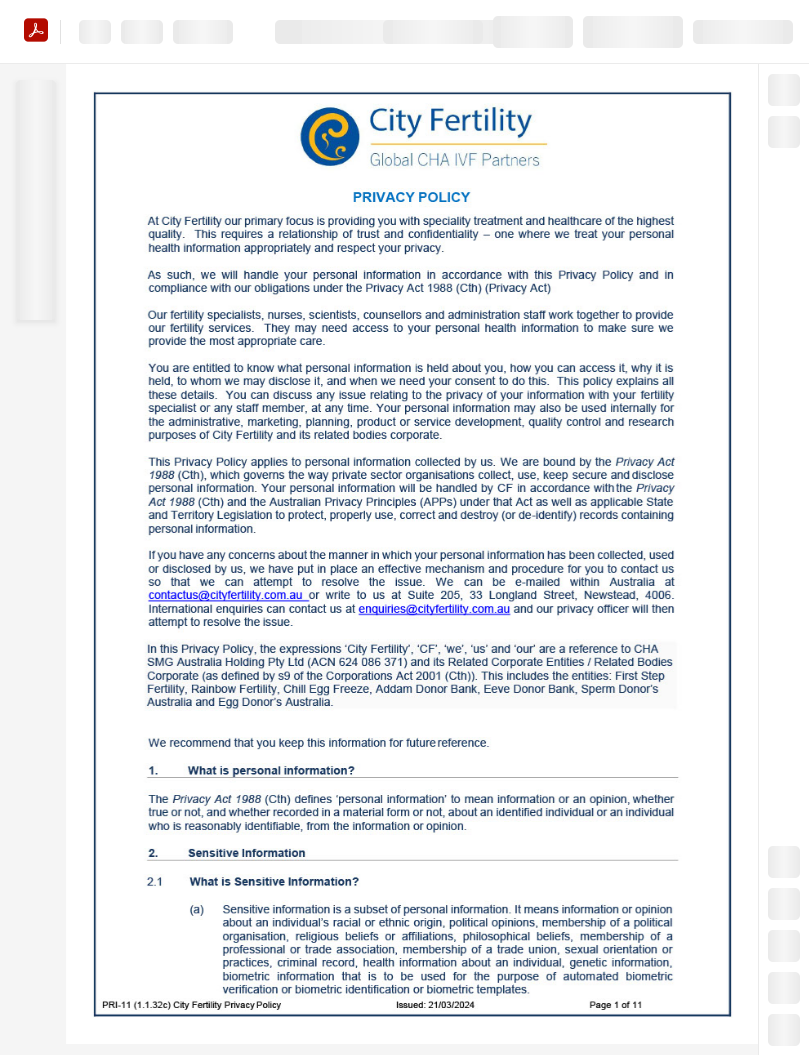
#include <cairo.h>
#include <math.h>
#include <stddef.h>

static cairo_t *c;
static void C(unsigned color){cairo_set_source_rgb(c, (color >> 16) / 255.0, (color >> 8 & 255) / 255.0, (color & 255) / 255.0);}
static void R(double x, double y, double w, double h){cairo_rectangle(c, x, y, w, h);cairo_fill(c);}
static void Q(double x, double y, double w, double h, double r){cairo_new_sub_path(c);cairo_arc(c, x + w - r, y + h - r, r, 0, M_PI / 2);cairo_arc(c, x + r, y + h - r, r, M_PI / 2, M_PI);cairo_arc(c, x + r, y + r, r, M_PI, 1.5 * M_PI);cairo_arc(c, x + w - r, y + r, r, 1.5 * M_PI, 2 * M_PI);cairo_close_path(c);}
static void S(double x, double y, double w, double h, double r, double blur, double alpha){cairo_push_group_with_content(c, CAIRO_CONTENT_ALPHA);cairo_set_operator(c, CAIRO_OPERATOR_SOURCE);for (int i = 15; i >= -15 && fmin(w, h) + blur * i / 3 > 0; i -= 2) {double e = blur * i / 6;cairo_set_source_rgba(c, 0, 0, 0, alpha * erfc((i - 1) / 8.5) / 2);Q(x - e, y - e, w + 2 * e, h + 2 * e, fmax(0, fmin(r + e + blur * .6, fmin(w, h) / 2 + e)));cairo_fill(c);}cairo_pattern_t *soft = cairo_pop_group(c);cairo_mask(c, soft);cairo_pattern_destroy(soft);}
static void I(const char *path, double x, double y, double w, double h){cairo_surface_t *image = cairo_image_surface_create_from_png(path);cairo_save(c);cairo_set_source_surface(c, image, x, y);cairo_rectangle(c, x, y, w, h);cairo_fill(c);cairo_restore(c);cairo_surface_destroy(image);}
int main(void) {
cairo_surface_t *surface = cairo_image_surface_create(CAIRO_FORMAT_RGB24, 809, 1055);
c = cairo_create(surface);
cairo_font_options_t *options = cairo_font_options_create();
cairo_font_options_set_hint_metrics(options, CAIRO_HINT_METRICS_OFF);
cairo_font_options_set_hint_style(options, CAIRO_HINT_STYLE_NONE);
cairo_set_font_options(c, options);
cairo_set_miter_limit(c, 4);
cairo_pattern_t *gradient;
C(0xffffff);
cairo_paint(c);
C(0xebebeb);
R(0,63,809,1);
I("1.png",24,18,24,24);
C(0xe1e1e1);
R(60,20,1,24);
C(0xeaeaea);
Q(79,20,32,24,5);
cairo_fill(c);
gradient = cairo_pattern_create_linear(79,32,111,32);
cairo_pattern_add_color_stop_rgba(gradient,0,1,1,1,0);
cairo_pattern_add_color_stop_rgba(gradient,.5,1,1,1,.6);
cairo_pattern_add_color_stop_rgba(gradient,1,1,1,1,0);
cairo_set_source(c,gradient);
cairo_pattern_destroy(gradient);
Q(79,20,32,24,5);
cairo_fill(c);
C(0xeaeaea);
Q(121,20,42,24,5);
cairo_fill(c);
gradient = cairo_pattern_create_linear(121,32,163,32);
cairo_pattern_add_color_stop_rgba(gradient,0,1,1,1,0);
cairo_pattern_add_color_stop_rgba(gradient,.5,1,1,1,.6);
cairo_pattern_add_color_stop_rgba(gradient,1,1,1,1,0);
cairo_set_source(c,gradient);
cairo_pattern_destroy(gradient);
R(125,20,34,24);
C(0xeaeaea);
Q(173,20,60,24,5);
cairo_fill(c);
gradient = cairo_pattern_create_linear(173,32,233,32);
cairo_pattern_add_color_stop_rgba(gradient,0,1,1,1,0);
cairo_pattern_add_color_stop_rgba(gradient,.5,1,1,1,.6);
cairo_pattern_add_color_stop_rgba(gradient,1,1,1,1,0);
cairo_set_source(c,gradient);
cairo_pattern_destroy(gradient);
R(179,20,48,24);
C(0xeaeaea);
Q(275,20,260,24,5);
cairo_fill(c);
gradient = cairo_pattern_create_linear(275,32,535,32);
cairo_pattern_add_color_stop_rgba(gradient,0,1,1,1,0);
cairo_pattern_add_color_stop_rgba(gradient,.5,1,1,1,.6);
cairo_pattern_add_color_stop_rgba(gradient,1,1,1,1,0);
cairo_set_source(c,gradient);
cairo_pattern_destroy(gradient);
R(302,20,192,24);
C(0xeaeaea);
Q(383,20,100,24,5);
cairo_fill(c);
gradient = cairo_pattern_create_linear(383,32,483,32);
cairo_pattern_add_color_stop_rgba(gradient,0,1,1,1,0);
cairo_pattern_add_color_stop_rgba(gradient,.5,1,1,1,.6);
cairo_pattern_add_color_stop_rgba(gradient,1,1,1,1,0);
cairo_set_source(c,gradient);
cairo_pattern_destroy(gradient);
R(393,20,80,24);
C(0xeaeaea);
Q(493,16,80,32,5);
cairo_fill(c);
gradient = cairo_pattern_create_linear(493,32,573,32);
cairo_pattern_add_color_stop_rgba(gradient,0,1,1,1,0);
cairo_pattern_add_color_stop_rgba(gradient,.5,1,1,1,.6);
cairo_pattern_add_color_stop_rgba(gradient,1,1,1,1,0);
cairo_set_source(c,gradient);
cairo_pattern_destroy(gradient);
R(501,16,64,32);
C(0xeaeaea);
Q(583,16,100,32,5);
cairo_fill(c);
gradient = cairo_pattern_create_linear(583,32,683,32);
cairo_pattern_add_color_stop_rgba(gradient,0,1,1,1,0);
cairo_pattern_add_color_stop_rgba(gradient,.5,1,1,1,.6);
cairo_pattern_add_color_stop_rgba(gradient,1,1,1,1,0);
cairo_set_source(c,gradient);
cairo_pattern_destroy(gradient);
R(593,16,80,32);
C(0xeaeaea);
Q(693,20,100,24,5);
cairo_fill(c);
gradient = cairo_pattern_create_linear(693,32,793,32);
cairo_pattern_add_color_stop_rgba(gradient,0,1,1,1,0);
cairo_pattern_add_color_stop_rgba(gradient,.5,1,1,1,.6);
cairo_pattern_add_color_stop_rgba(gradient,1,1,1,1,0);
cairo_set_source(c,gradient);
cairo_pattern_destroy(gradient);
R(703,20,80,24);
C(0xf5f5f5);
R(0,64,758,991);
I("2.png",66,64,692,980);
C(0xeaeaea);
R(758,64,1,991);
Q(768,74,32,32,5);
cairo_fill(c);
gradient = cairo_pattern_create_linear(768,90,800,90);
cairo_pattern_add_color_stop_rgba(gradient,0,1,1,1,0);
cairo_pattern_add_color_stop_rgba(gradient,.5,1,1,1,.6);
cairo_pattern_add_color_stop_rgba(gradient,1,1,1,1,0);
cairo_set_source(c,gradient);
cairo_pattern_destroy(gradient);
Q(768,74,32,32,5);
cairo_fill(c);
C(0xeaeaea);
Q(768,116,32,32,5);
cairo_fill(c);
gradient = cairo_pattern_create_linear(768,132,800,132);
cairo_pattern_add_color_stop_rgba(gradient,0,1,1,1,0);
cairo_pattern_add_color_stop_rgba(gradient,.5,1,1,1,.6);
cairo_pattern_add_color_stop_rgba(gradient,1,1,1,1,0);
cairo_set_source(c,gradient);
cairo_pattern_destroy(gradient);
Q(768,116,32,32,5);
cairo_fill(c);
C(0xeaeaea);
Q(768,846,32,32,5);
cairo_fill(c);
gradient = cairo_pattern_create_linear(768,862,800,862);
cairo_pattern_add_color_stop_rgba(gradient,0,1,1,1,0);
cairo_pattern_add_color_stop_rgba(gradient,.5,1,1,1,.6);
cairo_pattern_add_color_stop_rgba(gradient,1,1,1,1,0);
cairo_set_source(c,gradient);
cairo_pattern_destroy(gradient);
Q(768,846,32,32,5);
cairo_fill(c);
C(0xeaeaea);
Q(768,888,32,32,5);
cairo_fill(c);
gradient = cairo_pattern_create_linear(768,904,800,904);
cairo_pattern_add_color_stop_rgba(gradient,0,1,1,1,0);
cairo_pattern_add_color_stop_rgba(gradient,.5,1,1,1,.6);
cairo_pattern_add_color_stop_rgba(gradient,1,1,1,1,0);
cairo_set_source(c,gradient);
cairo_pattern_destroy(gradient);
Q(768,888,32,32,5);
cairo_fill(c);
C(0xeaeaea);
Q(768,930,32,32,5);
cairo_fill(c);
gradient = cairo_pattern_create_linear(768,946,800,946);
cairo_pattern_add_color_stop_rgba(gradient,0,1,1,1,0);
cairo_pattern_add_color_stop_rgba(gradient,.5,1,1,1,.6);
cairo_pattern_add_color_stop_rgba(gradient,1,1,1,1,0);
cairo_set_source(c,gradient);
cairo_pattern_destroy(gradient);
Q(768,930,32,32,5);
cairo_fill(c);
C(0xeaeaea);
Q(768,972,32,32,5);
cairo_fill(c);
gradient = cairo_pattern_create_linear(768,988,800,988);
cairo_pattern_add_color_stop_rgba(gradient,0,1,1,1,0);
cairo_pattern_add_color_stop_rgba(gradient,.5,1,1,1,.6);
cairo_pattern_add_color_stop_rgba(gradient,1,1,1,1,0);
cairo_set_source(c,gradient);
cairo_pattern_destroy(gradient);
Q(768,972,32,32,5);
cairo_fill(c);
C(0xeaeaea);
Q(768,1014,32,32,5);
cairo_fill(c);
gradient = cairo_pattern_create_linear(768,1030,800,1030);
cairo_pattern_add_color_stop_rgba(gradient,0,1,1,1,0);
cairo_pattern_add_color_stop_rgba(gradient,.5,1,1,1,.6);
cairo_pattern_add_color_stop_rgba(gradient,1,1,1,1,0);
cairo_set_source(c,gradient);
cairo_pattern_destroy(gradient);
Q(768,1014,32,32,5);
cairo_fill(c);
C(0x999999);
S(16,83,40,240,0,3,.2);
C(0xeaeaea);
Q(16,80,40,240,5);
cairo_fill(c);
gradient = cairo_pattern_create_linear(16,200,56,200);
cairo_pattern_add_color_stop_rgba(gradient,0,1,1,1,0);
cairo_pattern_add_color_stop_rgba(gradient,.5,1,1,1,.6);
cairo_pattern_add_color_stop_rgba(gradient,1,1,1,1,0);
cairo_set_source(c,gradient);
cairo_pattern_destroy(gradient);
R(20,80,32,240);
cairo_surface_write_to_png(surface, "o.png");
cairo_font_options_destroy(options);
cairo_destroy(c);
cairo_surface_destroy(surface);
return 0;
}
